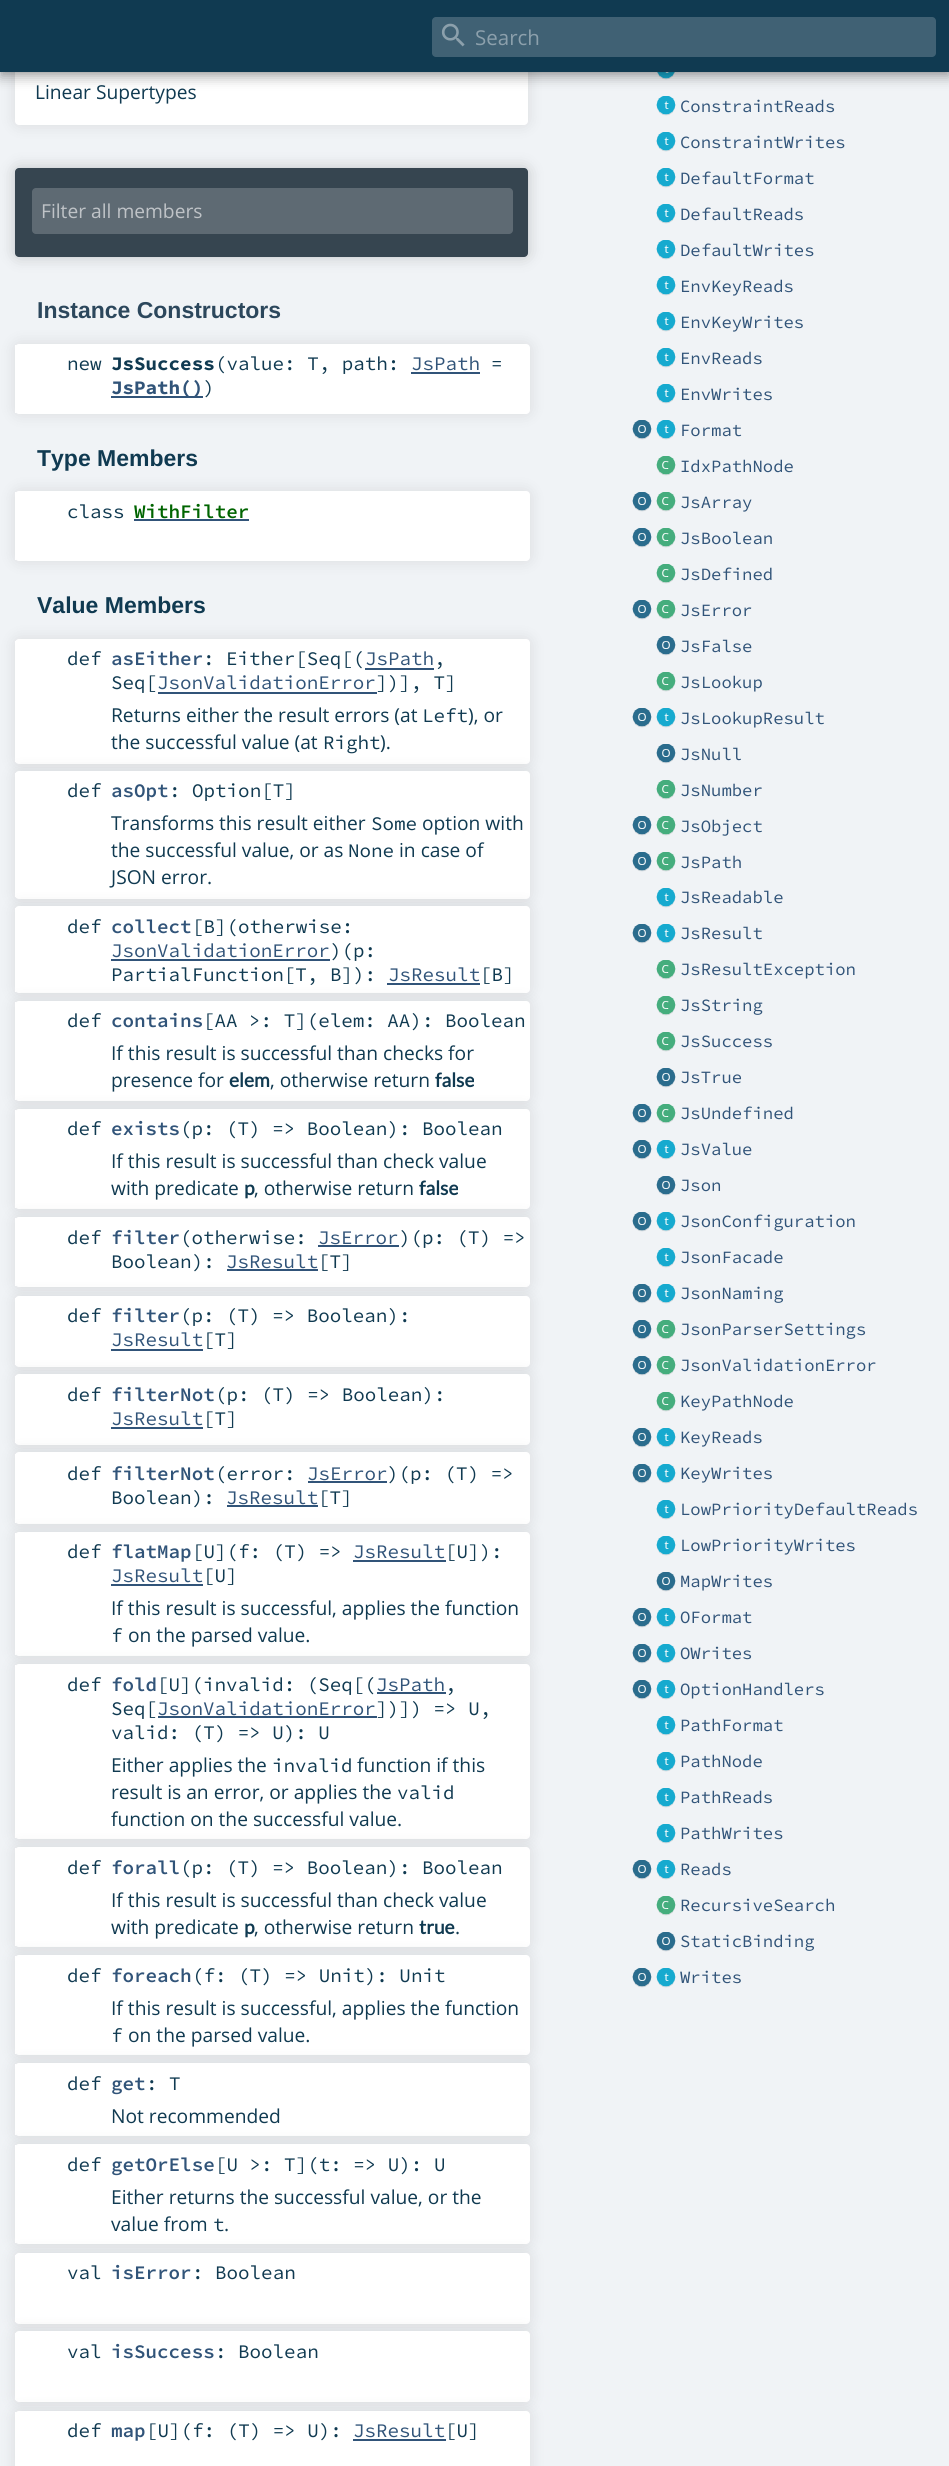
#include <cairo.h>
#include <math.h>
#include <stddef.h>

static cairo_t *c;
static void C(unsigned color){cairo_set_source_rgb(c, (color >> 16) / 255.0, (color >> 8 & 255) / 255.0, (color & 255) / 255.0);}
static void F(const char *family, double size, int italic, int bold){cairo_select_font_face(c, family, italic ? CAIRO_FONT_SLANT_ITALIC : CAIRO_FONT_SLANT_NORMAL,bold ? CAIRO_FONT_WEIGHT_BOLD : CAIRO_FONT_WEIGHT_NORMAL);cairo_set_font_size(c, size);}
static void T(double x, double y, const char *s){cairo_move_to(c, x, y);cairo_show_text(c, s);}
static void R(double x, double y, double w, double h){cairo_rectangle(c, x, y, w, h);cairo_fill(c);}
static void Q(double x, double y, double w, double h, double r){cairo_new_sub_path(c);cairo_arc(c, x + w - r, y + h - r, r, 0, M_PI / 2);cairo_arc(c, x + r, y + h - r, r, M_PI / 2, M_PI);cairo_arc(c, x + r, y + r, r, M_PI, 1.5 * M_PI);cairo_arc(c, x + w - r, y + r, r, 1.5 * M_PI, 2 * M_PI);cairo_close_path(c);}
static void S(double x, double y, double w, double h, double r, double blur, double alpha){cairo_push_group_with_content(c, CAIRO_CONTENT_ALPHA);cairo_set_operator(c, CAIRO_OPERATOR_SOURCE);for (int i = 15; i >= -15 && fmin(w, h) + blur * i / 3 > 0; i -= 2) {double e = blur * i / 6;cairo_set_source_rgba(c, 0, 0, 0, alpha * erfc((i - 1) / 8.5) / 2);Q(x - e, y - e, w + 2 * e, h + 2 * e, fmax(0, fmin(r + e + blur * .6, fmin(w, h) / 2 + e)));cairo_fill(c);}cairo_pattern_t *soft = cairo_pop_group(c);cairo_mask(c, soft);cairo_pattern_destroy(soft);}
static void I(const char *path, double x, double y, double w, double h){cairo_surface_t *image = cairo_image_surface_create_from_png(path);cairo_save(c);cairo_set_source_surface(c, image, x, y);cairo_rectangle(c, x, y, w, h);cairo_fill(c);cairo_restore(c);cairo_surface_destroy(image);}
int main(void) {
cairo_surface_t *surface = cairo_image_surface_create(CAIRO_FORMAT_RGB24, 949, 2466);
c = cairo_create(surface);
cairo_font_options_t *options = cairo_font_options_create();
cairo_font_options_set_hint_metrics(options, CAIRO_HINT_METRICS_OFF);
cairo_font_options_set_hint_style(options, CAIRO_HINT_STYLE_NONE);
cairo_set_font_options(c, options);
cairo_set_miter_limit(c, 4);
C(0xf0f3f6);
cairo_paint(c);
C(0x000000);
S(15,59,513,66,4,7.5,.1);
C(0xffffff);
Q(15,59,513,66,4);
cairo_fill(c);
I("2.png",657,72,18,8);
I("3.png",656,96,20,20);
C(0x000000);
S(0,6,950,72,0,6,.28);
S(0,0,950,72,0,3,.18);
C(0x103a51);
R(0,0,949,72);
C(0x406174);
Q(432,17,504,40,4);
cairo_fill(c);
I("1.png",441,23,24,24);
F("Open Sans",20.5,0,0);
C(0x8ca0ac);
T(475,45,"Search");
F("Open Sans",19.2,0,0);
C(0x103a51);
T(35,99,"Linear Supertypes");
C(0x000000);
S(15,168,513,89,4,7.5,.2);
C(0x364550);
Q(15,168,513,89,4);
cairo_fill(c);
C(0x5e6a73);
Q(32,188,481,46,4);
cairo_fill(c);
C(0xbfc3c7);
T(41,218,"Filter all members");
F("Liberation Sans",23,0,1);
C(0x2c475c);
T(37,318,"Instance Constructors");
C(0x000000);
S(15,344,515,70,4,7.5,.1);
C(0xffffff);
Q(15,344,515,70,4);
cairo_fill(c);
R(15,345,1,68);
F("Source Code Pro",19.2,0,0);
C(0x103a51);
T(67,370,"new");
F("Source Code Pro",19.2,0,1);
T(111,370,"JsSuccess");
F("Source Code Pro",19.2,0,0);
T(215,370,"(value: T, path:");
C(0x315479);
T(411,370,"JsPath");
R(411,372,69,2);
C(0x103a51);
T(491,370,"=");
C(0x315479);
R(111,396,92,2);
F("Source Code Pro",19.2,0,1);
T(111,394,"JsPath()");
F("Source Code Pro",19.2,0,0);
C(0x103a51);
T(203,394,")");
F("Liberation Sans",23,0,1);
T(37,466,"Type Members");
C(0x000000);
S(15,491,515,70,4,7.5,.1);
C(0xffffff);
Q(15,491,515,70,4);
cairo_fill(c);
R(15,492,1,68);
F("Source Code Pro",19.2,0,0);
C(0x103a51);
T(67,518,"class");
F("Source Code Pro SemiBold",19.2,0,0);
C(0x006400);
T(134,518,"WithFilter");
C(0x315479);
R(134,519,115,2);
F("Liberation Sans",23,0,1);
C(0x103a51);
T(37,613,"Value Members");
C(0x000000);
S(15,639,515,125,4,7.5,.1);
C(0xffffff);
Q(15,639,515,125,4);
cairo_fill(c);
R(15,641,1,121);
F("Source Code Pro",19.2,0,0);
C(0x103a51);
T(67,665,"def");
F("Source Code Pro SemiBold",19.2,0,0);
C(0x315479);
T(111,665,"asEither");
F("Source Code Pro",19.2,0,0);
C(0x103a51);
T(203,665,": Either[Seq[(");
C(0x315479);
T(365,665,"JsPath");
C(0x103a51);
T(434,665,",");
C(0x315479);
R(365,668,69,2);
C(0x103a51);
T(111,689,"Seq[");
C(0x315479);
T(157,689,"JsonValidationError");
C(0x103a51);
T(376,689,"])], T]");
C(0x315479);
R(158,692,219,2);
F("Open Sans",19.2,0,0);
C(0x103a51);
T(111,722,"Returns either the result errors (at");
F("Source Code Pro",19.2,0,0);
T(422,722,"Left");
F("Open Sans",19.2,0,0);
T(468,722,"), or");
T(111,749,"the successful value (at");
F("Source Code Pro",19.2,0,0);
T(323,749,"Right");
F("Open Sans",19.2,0,0);
T(380,749,").");
C(0x000000);
S(15,771,515,128,4,7.5,.1);
C(0xffffff);
Q(15,771,515,128,4);
cairo_fill(c);
R(15,773,1,124);
F("Source Code Pro",19.2,0,0);
C(0x103a51);
T(67,797,"def");
F("Source Code Pro SemiBold",19.2,0,0);
C(0x315479);
T(111,797,"asOpt");
F("Source Code Pro",19.2,0,0);
C(0x103a51);
T(169,797,": Option[T]");
F("Open Sans",19.2,0,0);
T(111,830,"Transforms this result either");
F("Source Code Pro",19.2,0,0);
T(371,830,"Some");
F("Open Sans",19.2,0,0);
T(422,830,"option with");
T(111,857,"the successful value, or as");
F("Source Code Pro",19.2,0,0);
T(348,857,"None");
F("Open Sans",19.2,0,0);
T(399,857,"in case of");
T(111,884,"JSON error.");
C(0x000000);
S(15,906,515,87,4,7.5,.1);
C(0xffffff);
Q(15,906,515,87,4);
cairo_fill(c);
R(15,908,1,84);
F("Source Code Pro",19.2,0,0);
C(0x103a51);
T(67,933,"def");
F("Source Code Pro SemiBold",19.2,0,0);
C(0x315479);
T(111,933,"collect");
F("Source Code Pro",19.2,0,0);
C(0x103a51);
T(192,933,"[B](otherwise:");
C(0x315479);
T(111,957,"JsonValidationError");
R(111,959,219,2);
C(0x103a51);
T(330,957,")(p:");
T(111,981,"PartialFunction[T, B]):");
C(0x315479);
T(388,981,"JsResult");
R(387,983,93,2);
C(0x103a51);
T(480,981,"[B]");
C(0x000000);
S(15,1001,515,100,4,7.5,.1);
C(0xffffff);
Q(15,1001,515,100,4);
cairo_fill(c);
R(15,1002,1,98);
C(0x103a51);
T(67,1027,"def");
F("Source Code Pro SemiBold",19.2,0,0);
C(0x315479);
T(111,1027,"contains");
F("Source Code Pro",19.2,0,0);
C(0x103a51);
T(203,1027,"[AA >: T](elem: AA): Boolean");
F("Open Sans",19.2,0,0);
T(111,1060,"If this result is successful than checks for");
T(111,1087,"presence for");
F("Lato",19.2,0,1);
T(229,1087,"elem");
F("Open Sans",19.2,0,0);
T(270,1087,", otherwise return");
F("Lato",19.2,0,1);
T(435,1087,"false");
C(0x000000);
S(15,1109,515,100,4,7.5,.1);
C(0xffffff);
Q(15,1109,515,100,4);
cairo_fill(c);
R(15,1110,1,98);
F("Source Code Pro",19.2,0,0);
C(0x103a51);
T(67,1135,"def");
F("Source Code Pro SemiBold",19.2,0,0);
C(0x315479);
T(111,1135,"exists");
F("Source Code Pro",19.2,0,0);
C(0x103a51);
T(180,1135,"(p: (T) => Boolean): Boolean");
F("Open Sans",19.2,0,0);
T(111,1168,"If this result is successful than check value");
T(111,1195,"with predicate");
F("Lato",19.2,0,1);
T(244,1195,"p");
F("Open Sans",19.2,0,0);
T(254,1195,", otherwise return");
F("Lato",19.2,0,1);
T(419,1195,"false");
C(0x000000);
S(15,1217,515,70,4,7.5,.1);
C(0xffffff);
Q(15,1217,515,70,4);
cairo_fill(c);
R(15,1218,1,68);
F("Source Code Pro",19.2,0,0);
C(0x103a51);
T(67,1244,"def");
F("Source Code Pro SemiBold",19.2,0,0);
C(0x315479);
T(111,1244,"filter");
F("Source Code Pro",19.2,0,0);
C(0x103a51);
T(180,1244,"(otherwise:");
C(0x315479);
T(318,1244,"JsError");
R(318,1245,81,2);
C(0x103a51);
T(399,1244,")(p: (T) =>");
T(111,1268,"Boolean):");
C(0x315479);
T(226,1268,"JsResult");
R(227,1269,91,2);
C(0x103a51);
T(318,1268,"[T]");
C(0x000000);
S(15,1296,515,71,4,7.5,.1);
C(0xffffff);
Q(15,1296,515,71,4);
cairo_fill(c);
R(15,1298,1,67);
C(0x103a51);
T(67,1322,"def");
F("Source Code Pro SemiBold",19.2,0,0);
C(0x315479);
T(111,1322,"filter");
F("Source Code Pro",19.2,0,0);
C(0x103a51);
T(180,1322,"(p: (T) => Boolean):");
C(0x315479);
T(111,1346,"JsResult");
R(111,1349,92,2);
C(0x103a51);
T(203,1346,"[T]");
C(0x000000);
S(15,1374,515,71,4,7.5,.1);
C(0xffffff);
Q(15,1374,515,71,4);
cairo_fill(c);
R(15,1376,1,67);
C(0x103a51);
T(67,1401,"def");
F("Source Code Pro SemiBold",19.2,0,0);
C(0x315479);
T(111,1401,"filterNot");
F("Source Code Pro",19.2,0,0);
C(0x103a51);
T(215,1401,"(p: (T) => Boolean):");
C(0x315479);
T(111,1425,"JsResult");
R(111,1427,92,2);
C(0x103a51);
T(203,1425,"[T]");
C(0x000000);
S(15,1452,515,72,4,7.5,.1);
C(0xffffff);
Q(15,1452,515,72,4);
cairo_fill(c);
R(15,1454,1,69);
C(0x103a51);
T(67,1480,"def");
F("Source Code Pro SemiBold",19.2,0,0);
C(0x315479);
T(111,1480,"filterNot");
F("Source Code Pro",19.2,0,0);
C(0x103a51);
T(215,1480,"(error:");
C(0x315479);
T(307,1480,"JsError");
R(308,1481,79,2);
C(0x103a51);
T(387,1480,")(p: (T) =>");
T(111,1504,"Boolean):");
C(0x315479);
T(226,1504,"JsResult");
R(227,1505,91,2);
C(0x103a51);
T(318,1504,"[T]");
C(0x000000);
S(15,1532,515,124,4,7.5,.1);
C(0xffffff);
Q(15,1532,515,124,4);
cairo_fill(c);
R(15,1533,1,122);
C(0x103a51);
T(67,1558,"def");
F("Source Code Pro SemiBold",19.2,0,0);
C(0x315479);
T(111,1558,"flatMap");
F("Source Code Pro",19.2,0,0);
C(0x103a51);
T(192,1558,"[U](f: (T) =>");
C(0x315479);
T(353,1558,"JsResult");
R(353,1560,93,2);
C(0x103a51);
T(445,1558,"[U]):");
C(0x315479);
T(111,1582,"JsResult");
R(111,1584,92,2);
C(0x103a51);
T(203,1582,"[U]");
F("Open Sans",19.2,0,0);
T(111,1615,"If this result is successful, applies the function");
F("Source Code Pro",19.2,0,0);
T(111,1642,"f");
F("Open Sans",19.2,0,0);
T(128,1642,"on the parsed value.");
C(0x000000);
S(15,1664,515,175,4,7.5,.1);
C(0xffffff);
Q(15,1664,515,175,4);
cairo_fill(c);
R(15,1665,1,173);
F("Source Code Pro",19.2,0,0);
C(0x103a51);
T(67,1691,"def");
F("Source Code Pro SemiBold",19.2,0,0);
C(0x315479);
T(111,1691,"fold");
F("Source Code Pro",19.2,0,0);
C(0x103a51);
T(157,1691,"[U](invalid: (Seq[(");
C(0x315479);
T(376,1691,"JsPath");
C(0x103a51);
T(445,1691,",");
C(0x315479);
R(377,1692,69,2);
C(0x103a51);
T(111,1715,"Seq[");
C(0x315479);
T(157,1715,"JsonValidationError");
C(0x103a51);
T(376,1715,"])]) => U,");
C(0x315479);
R(158,1716,219,2);
C(0x103a51);
T(111,1739,"valid: (T) => U): U");
F("Open Sans",19.2,0,0);
T(111,1772,"Either applies the");
F("Source Code Pro",19.2,0,0);
T(272,1772,"invalid");
F("Open Sans",19.2,0,0);
T(357,1772,"function if this");
T(111,1799,"result is an error, or applies the");
F("Source Code Pro",19.2,0,0);
T(397,1799,"valid");
F("Open Sans",19.2,0,0);
T(111,1826,"function on the successful value.");
C(0x000000);
S(15,1847,515,100,4,7.5,.1);
C(0xffffff);
Q(15,1847,515,100,4);
cairo_fill(c);
R(15,1848,1,98);
F("Source Code Pro",19.2,0,0);
C(0x103a51);
T(67,1874,"def");
F("Source Code Pro SemiBold",19.2,0,0);
C(0x315479);
T(111,1874,"forall");
F("Source Code Pro",19.2,0,0);
C(0x103a51);
T(180,1874,"(p: (T) => Boolean): Boolean");
F("Open Sans",19.2,0,0);
T(111,1907,"If this result is successful than check value");
T(111,1934,"with predicate");
F("Lato",19.2,0,1);
T(244,1934,"p");
F("Open Sans",19.2,0,0);
T(254,1934,", otherwise return");
F("Lato",19.2,0,1);
T(419,1934,"true");
F("Open Sans",19.2,0,0);
T(455,1934,".");
C(0x000000);
S(15,1955,515,100,4,7.5,.1);
C(0xffffff);
Q(15,1955,515,100,4);
cairo_fill(c);
R(15,1956,1,98);
F("Source Code Pro",19.2,0,0);
C(0x103a51);
T(67,1982,"def");
F("Source Code Pro SemiBold",19.2,0,0);
C(0x315479);
T(111,1982,"foreach");
F("Source Code Pro",19.2,0,0);
C(0x103a51);
T(192,1982,"(f: (T) => Unit): Unit");
F("Open Sans",19.2,0,0);
T(111,2015,"If this result is successful, applies the function");
F("Source Code Pro",19.2,0,0);
T(111,2042,"f");
F("Open Sans",19.2,0,0);
T(128,2042,"on the parsed value.");
C(0x000000);
S(15,2063,515,73,4,7.5,.1);
C(0xffffff);
Q(15,2063,515,73,4);
cairo_fill(c);
R(15,2064,1,71);
F("Source Code Pro",19.2,0,0);
C(0x103a51);
T(67,2090,"def");
F("Source Code Pro SemiBold",19.2,0,0);
C(0x315479);
T(111,2090,"get");
F("Source Code Pro",19.2,0,0);
C(0x103a51);
T(146,2090,": T");
F("Open Sans",19.2,0,0);
T(111,2123,"Not recommended");
C(0x000000);
S(15,2144,515,100,4,7.5,.1);
C(0xffffff);
Q(15,2144,515,100,4);
cairo_fill(c);
R(15,2145,1,98);
F("Source Code Pro",19.2,0,0);
C(0x103a51);
T(67,2171,"def");
F("Source Code Pro SemiBold",19.2,0,0);
C(0x315479);
T(111,2171,"getOrElse");
F("Source Code Pro",19.2,0,0);
C(0x103a51);
T(215,2171,"[U >: T](t: => U): U");
F("Open Sans",19.2,0,0);
T(111,2204,"Either returns the successful value, or the");
T(111,2231,"value from");
F("Source Code Pro",19.2,0,0);
T(213,2231,"t");
F("Open Sans",19.2,0,0);
T(224,2231,".");
C(0x000000);
S(15,2253,515,71,4,7.5,.1);
C(0xffffff);
Q(15,2253,515,71,4);
cairo_fill(c);
R(15,2255,1,67);
F("Source Code Pro",19.2,0,0);
C(0x103a51);
T(67,2279,"val");
F("Source Code Pro SemiBold",19.2,0,0);
C(0x315479);
T(111,2279,"isError");
F("Source Code Pro",19.2,0,0);
C(0x103a51);
T(192,2279,": Boolean");
C(0x000000);
S(15,2331,515,71,4,7.5,.1);
C(0xffffff);
Q(15,2331,515,71,4);
cairo_fill(c);
R(15,2333,1,67);
C(0x103a51);
T(67,2358,"val");
F("Source Code Pro SemiBold",19.2,0,0);
C(0x315479);
T(111,2358,"isSuccess");
F("Source Code Pro",19.2,0,0);
C(0x103a51);
T(215,2358,": Boolean");
C(0x000000);
S(15,2411,515,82,4,7.5,.1);
C(0xffffff);
Q(15,2411,515,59,4);
cairo_fill(c);
R(15,2412,1,2);
C(0x103a51);
T(67,2437,"def");
F("Source Code Pro SemiBold",19.2,0,0);
C(0x315479);
T(111,2437,"map");
F("Source Code Pro",19.2,0,0);
C(0x103a51);
T(146,2437,"[U](f: (T) => U):");
C(0x315479);
T(353,2437,"JsResult");
R(353,2439,93,2);
C(0x103a51);
T(445,2437,"[U]");
F("Source Code Pro",17.25,0,0);
C(0x315479);
T(680,112,"ConstraintReads");
I("3.png",656,132,20,20);
T(680,148,"ConstraintWrites");
I("3.png",656,168,20,20);
T(680,184,"DefaultFormat");
I("3.png",656,204,20,20);
T(680,220,"DefaultReads");
I("3.png",656,240,20,20);
T(680,256,"DefaultWrites");
I("4.png",656,276,20,20);
T(680,292,"EnvKeyReads");
I("3.png",656,312,20,20);
T(680,328,"EnvKeyWrites");
I("3.png",656,348,20,20);
T(680,364,"EnvReads");
I("3.png",656,384,20,20);
T(680,400,"EnvWrites");
I("5.png",632,420,20,20);
I("3.png",656,420,20,20);
T(680,436,"Format");
I("6.png",656,456,20,20);
T(680,472,"IdxPathNode");
I("5.png",632,492,20,20);
I("6.png",656,492,20,20);
T(680,508,"JsArray");
I("7.png",632,528,20,20);
I("8.png",656,528,20,20);
T(680,544,"JsBoolean");
I("6.png",656,564,20,20);
T(680,580,"JsDefined");
I("5.png",632,600,20,20);
I("6.png",656,600,20,20);
T(680,616,"JsError");
I("9.png",656,636,20,20);
T(680,652,"JsFalse");
I("6.png",656,672,20,20);
T(680,688,"JsLookup");
I("5.png",632,708,20,20);
I("3.png",656,708,20,20);
T(680,724,"JsLookupResult");
I("9.png",656,744,20,20);
T(680,760,"JsNull");
I("10.png",656,780,20,20);
T(680,796,"JsNumber");
I("5.png",632,816,20,20);
I("6.png",656,816,20,20);
T(680,832,"JsObject");
I("5.png",632,852,20,20);
I("6.png",656,852,20,20);
T(680,868,"JsPath");
I("3.png",656,888,20,20);
T(680,903,"JsReadable");
I("5.png",632,924,20,20);
I("3.png",656,924,20,20);
T(680,939,"JsResult");
I("6.png",656,960,20,20);
T(680,975,"JsResultException");
I("6.png",656,996,20,20);
T(680,1011,"JsString");
I("6.png",656,1032,20,20);
T(680,1047,"JsSuccess");
I("9.png",656,1068,20,20);
T(680,1083,"JsTrue");
I("5.png",632,1104,20,20);
I("6.png",656,1104,20,20);
T(680,1119,"JsUndefined");
I("5.png",632,1140,20,20);
I("3.png",656,1140,20,20);
T(680,1155,"JsValue");
I("9.png",656,1176,20,20);
T(680,1191,"Json");
I("5.png",632,1212,20,20);
I("3.png",656,1212,20,20);
T(680,1227,"JsonConfiguration");
I("3.png",656,1248,20,20);
T(680,1263,"JsonFacade");
I("5.png",632,1284,20,20);
I("3.png",656,1284,20,20);
T(680,1299,"JsonNaming");
I("5.png",632,1320,20,20);
I("6.png",656,1320,20,20);
T(680,1335,"JsonParserSettings");
I("5.png",632,1356,20,20);
I("6.png",656,1356,20,20);
T(680,1371,"JsonValidationError");
I("6.png",656,1392,20,20);
T(680,1407,"KeyPathNode");
I("5.png",632,1428,20,20);
I("3.png",656,1428,20,20);
T(680,1443,"KeyReads");
I("5.png",632,1464,20,20);
I("3.png",656,1464,20,20);
T(680,1479,"KeyWrites");
I("3.png",656,1500,20,20);
T(680,1515,"LowPriorityDefaultReads");
I("3.png",656,1536,20,20);
T(680,1551,"LowPriorityWrites");
I("9.png",656,1572,20,20);
T(680,1587,"MapWrites");
I("5.png",632,1608,20,20);
I("3.png",656,1608,20,20);
T(680,1623,"OFormat");
I("5.png",632,1644,20,20);
I("3.png",656,1644,20,20);
T(680,1659,"OWrites");
I("5.png",632,1680,20,20);
I("3.png",656,1680,20,20);
T(680,1695,"OptionHandlers");
I("3.png",656,1716,20,20);
T(680,1731,"PathFormat");
I("3.png",656,1752,20,20);
T(680,1767,"PathNode");
I("3.png",656,1788,20,20);
T(680,1803,"PathReads");
I("3.png",656,1824,20,20);
T(680,1839,"PathWrites");
I("5.png",632,1860,20,20);
I("3.png",656,1860,20,20);
T(680,1875,"Reads");
I("6.png",656,1896,20,20);
T(680,1911,"RecursiveSearch");
I("9.png",656,1932,20,20);
T(680,1947,"StaticBinding");
I("5.png",632,1968,20,20);
I("3.png",656,1968,20,20);
T(680,1983,"Writes");
cairo_surface_write_to_png(surface, "o.png");
cairo_font_options_destroy(options);
cairo_destroy(c);
cairo_surface_destroy(surface);
return 0;
}
